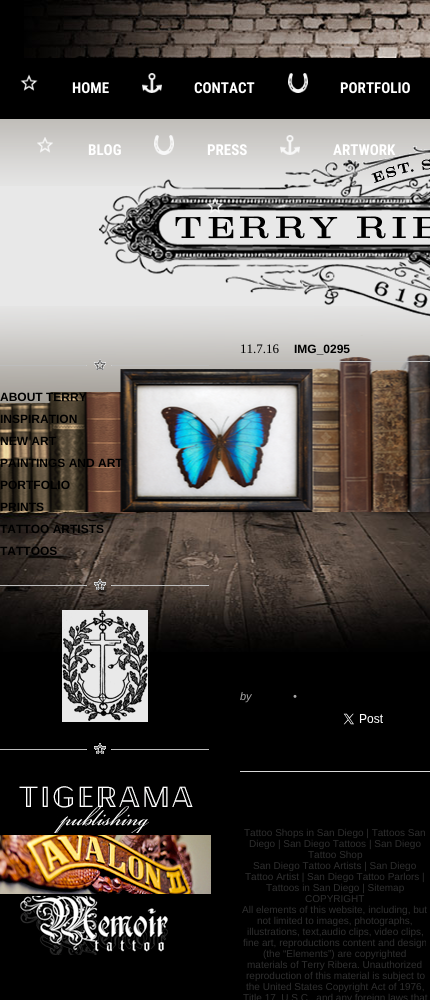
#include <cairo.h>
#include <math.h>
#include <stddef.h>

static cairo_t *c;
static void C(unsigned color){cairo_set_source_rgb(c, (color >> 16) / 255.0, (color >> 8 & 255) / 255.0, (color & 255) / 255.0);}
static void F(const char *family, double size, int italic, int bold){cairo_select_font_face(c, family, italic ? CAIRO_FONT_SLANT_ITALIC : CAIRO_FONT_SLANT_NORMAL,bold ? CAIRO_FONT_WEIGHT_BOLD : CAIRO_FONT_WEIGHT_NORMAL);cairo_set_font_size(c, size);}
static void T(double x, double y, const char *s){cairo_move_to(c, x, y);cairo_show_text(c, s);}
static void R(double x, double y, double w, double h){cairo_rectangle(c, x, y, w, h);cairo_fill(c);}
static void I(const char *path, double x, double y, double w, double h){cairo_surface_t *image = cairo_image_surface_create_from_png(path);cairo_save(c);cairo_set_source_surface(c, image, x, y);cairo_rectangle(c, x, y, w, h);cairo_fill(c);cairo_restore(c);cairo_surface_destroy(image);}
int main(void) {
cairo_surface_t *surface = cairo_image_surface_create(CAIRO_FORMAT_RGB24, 430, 1000);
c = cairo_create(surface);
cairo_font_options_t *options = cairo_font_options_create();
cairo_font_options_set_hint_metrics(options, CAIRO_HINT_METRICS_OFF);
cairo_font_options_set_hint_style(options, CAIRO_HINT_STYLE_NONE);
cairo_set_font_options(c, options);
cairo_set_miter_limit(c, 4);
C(0x000000);
cairo_paint(c);
I("1.png",24,0,406,58);
I("2.png",20,74,18,17);
F("Roboto Condensed",15,0,1);
C(0xffffff);
T(72,93,"HOME");
I("3.png",142,73,20,20);
T(194,93,"CONTACT");
I("4.png",288,73,20,20);
T(340,93,"PORTFOLIO");
I("9.png",0,119,430,67);
I("5.png",37,137,16,16);
C(0xe8e8e8);
R(0,186,430,120);
I("10.png",0,306,430,206);
I("12.png",99,146,331,171);
C(0xffffff);
T(88,155,"BLOG");
I("6.png",154,135,20,20);
T(207,155,"PRESS");
I("7.png",280,135,20,20);
T(333,155,"ARTWORK");
I("8.png",206,197,18,17);
I("11.png",0,335,430,177);
I("13.png",0,359,209,11);
F("Liberation Sans",12,0,1);
C(0x000000);
T(0,401,"ABOUT TERRY");
T(0,423,"INSPIRATION");
T(0,445,"NEW ART");
T(0,467,"PAINTINGS AND ART");
T(0,489,"PORTFOLIO");
T(0,511,"PRINTS");
I("21.png",0,512,430,140);
T(0,533,"TATTOO ARTISTS");
T(0,555,"TATTOOS");
I("14.png",0,579,209,11);
I("15.png",62,610,86,112);
I("16.png",0,743,209,11);
I("17.png",19,786,174,47);
I("18.png",0,835,211,59);
I("19.png",20,896,148,59);
F("Liberation Serif",13,0,0);
T(240,353,"11.7.16");
C(0xbdbdbd);
R(240,361,190,1);
F("Liberation Sans",12,0,1);
C(0x000000);
T(294,353,"IMG_0295");
F("Liberation Sans",11,1,0);
C(0xaaa9a9);
T(240,700,"by");
T(293,700,"•");
I("20.png",343,713,40,12);
C(0xd9d9d9);
R(240,771,190,1);
F("Liberation Sans",10,0,0);
C(0x2e2e2e);
T(244,836,"Tattoo Shops in San Diego | Tattoos San");
T(249,847,"Diego | San Diego Tattoos | San Diego");
T(308,858,"Tattoo Shop");
T(253,869,"San Diego Tattoo Artists | San Diego");
T(245,880,"Tattoo Artist | San Diego Tattoo Parlors |");
T(266,891,"Tattoos in San Diego | Sitemap");
T(305,902,"COPYRIGHT");
T(242,913,"All elements of this website, including, but");
T(257,924,"not limited to images, photographs,");
T(247,935,"illustrations, text,audio clips, video clips,");
T(243,946,"fine art, reproductions content and design");
T(263,957,"(the “Elements”) are copyrighted");
T(247,968,"materials of Terry Ribera. Unauthorized");
T(246,979,"reproduction of this material is subject to");
T(246,990,"the United States Copyright Act of 1976,");
T(243,1001,"Title 17, U.S.C., and any foreign laws that");
cairo_surface_write_to_png(surface, "o.png");
cairo_font_options_destroy(options);
cairo_destroy(c);
cairo_surface_destroy(surface);
return 0;
}
